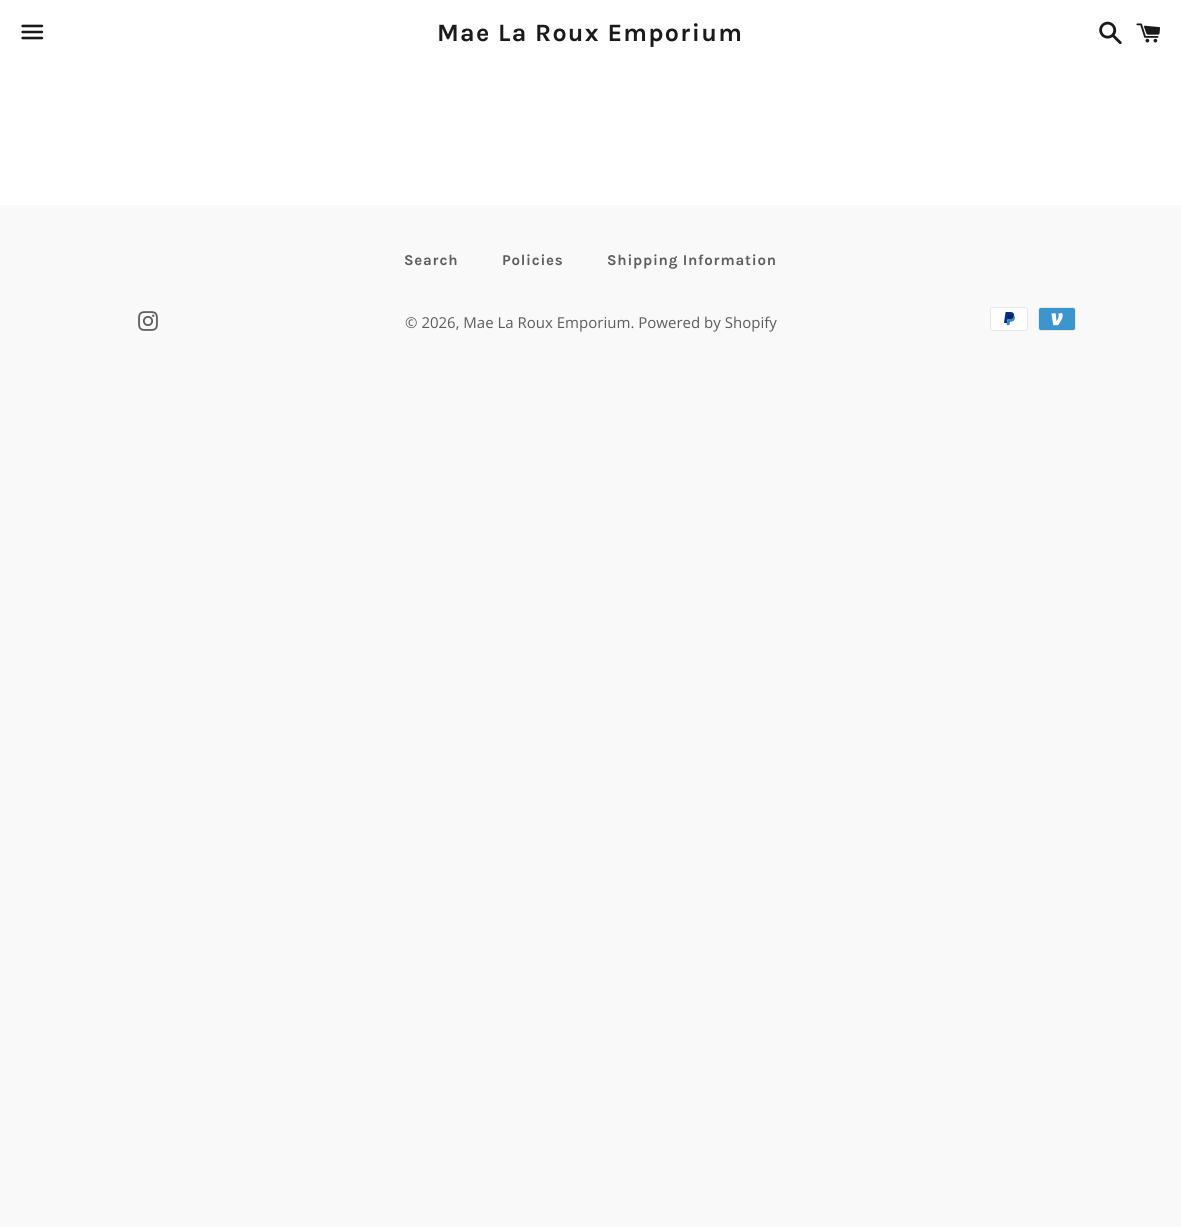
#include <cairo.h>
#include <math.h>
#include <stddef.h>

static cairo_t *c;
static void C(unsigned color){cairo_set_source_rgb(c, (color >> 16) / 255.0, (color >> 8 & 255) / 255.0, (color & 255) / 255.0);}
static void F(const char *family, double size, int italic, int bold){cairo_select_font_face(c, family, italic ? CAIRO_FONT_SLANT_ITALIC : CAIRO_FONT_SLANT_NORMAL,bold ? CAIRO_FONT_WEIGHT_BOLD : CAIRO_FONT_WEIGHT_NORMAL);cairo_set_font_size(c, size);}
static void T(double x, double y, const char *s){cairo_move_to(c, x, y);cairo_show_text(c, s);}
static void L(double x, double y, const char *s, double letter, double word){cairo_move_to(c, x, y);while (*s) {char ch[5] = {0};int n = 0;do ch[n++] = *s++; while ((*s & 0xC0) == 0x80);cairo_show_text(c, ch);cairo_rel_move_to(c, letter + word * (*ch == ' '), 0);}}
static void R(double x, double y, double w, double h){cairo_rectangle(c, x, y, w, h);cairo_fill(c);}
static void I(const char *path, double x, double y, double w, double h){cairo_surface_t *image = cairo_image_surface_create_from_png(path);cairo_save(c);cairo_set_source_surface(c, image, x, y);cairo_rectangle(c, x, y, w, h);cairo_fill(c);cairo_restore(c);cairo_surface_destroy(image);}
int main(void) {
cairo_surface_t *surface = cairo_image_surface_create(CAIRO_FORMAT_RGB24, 1181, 1227);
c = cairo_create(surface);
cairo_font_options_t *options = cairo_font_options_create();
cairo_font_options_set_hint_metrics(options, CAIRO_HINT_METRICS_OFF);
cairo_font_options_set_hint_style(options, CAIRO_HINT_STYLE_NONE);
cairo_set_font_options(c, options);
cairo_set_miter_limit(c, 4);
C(0xf9f9f9);
cairo_paint(c);
C(0xffffff);
R(0,0,1181,205);
I("1.png",21,24,23,16);
F("Karla",25,0,1);
C(0x1a1a1a);
L(437,41,"Mae La Roux Emporium",1.25,0);
I("2.png",1099,21,23,24);
I("3.png",1136,23,25,20);
F("Karla",15,0,1);
C(0x5c5c5c);
L(404,265,"Search",.75,0);
L(502,265,"Policies",.75,0);
L(607,265,"Shipping Information",.75,0);
I("4.png",138,311,20,20);
F("Open Sans",15,0,0);
T(405,328,"© 2026, Mae La Roux Emporium. Powered by Shopify");
I("5.png",990,307,38,24);
I("6.png",1038,307,38,24);
cairo_surface_write_to_png(surface, "o.png");
cairo_font_options_destroy(options);
cairo_destroy(c);
cairo_surface_destroy(surface);
return 0;
}
